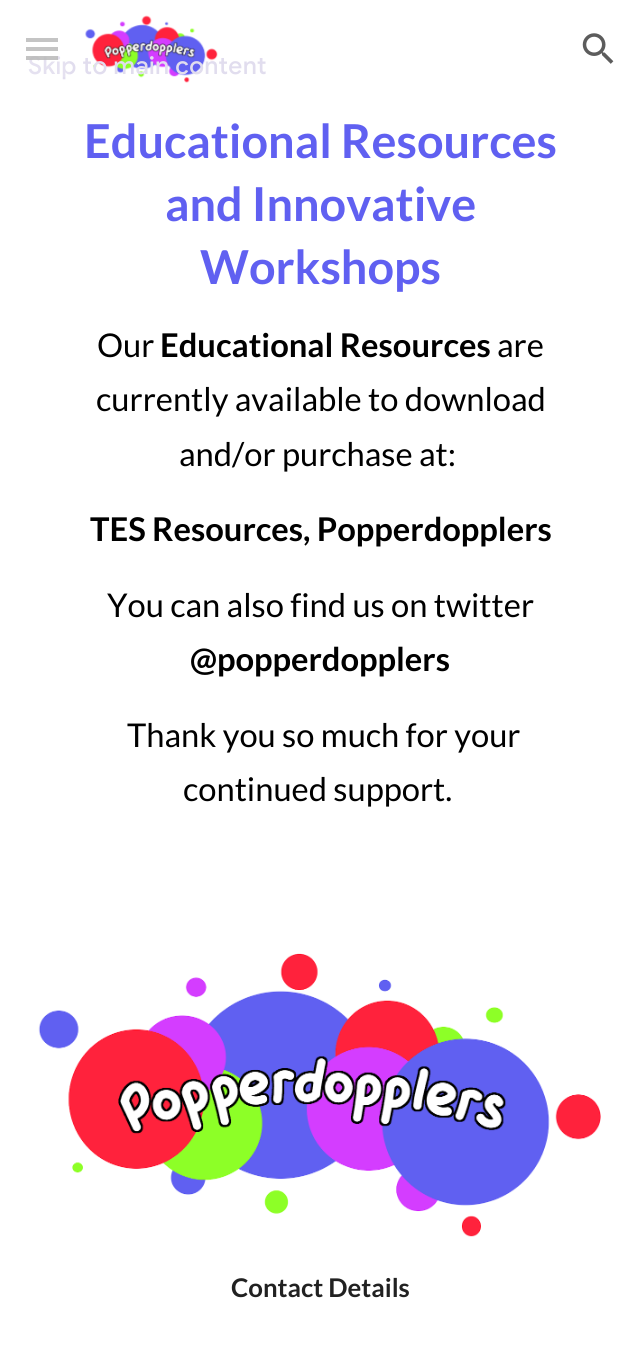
#include <cairo.h>
#include <math.h>
#include <stddef.h>

static cairo_t *c;
static void C(unsigned color){cairo_set_source_rgb(c, (color >> 16) / 255.0, (color >> 8 & 255) / 255.0, (color & 255) / 255.0);}
static void F(const char *family, double size, int italic, int bold){cairo_select_font_face(c, family, italic ? CAIRO_FONT_SLANT_ITALIC : CAIRO_FONT_SLANT_NORMAL,bold ? CAIRO_FONT_WEIGHT_BOLD : CAIRO_FONT_WEIGHT_NORMAL);cairo_set_font_size(c, size);}
static void T(double x, double y, const char *s){cairo_move_to(c, x, y);cairo_show_text(c, s);}
static void L(double x, double y, const char *s, double letter, double word){cairo_move_to(c, x, y);while (*s) {char ch[5] = {0};int n = 0;do ch[n++] = *s++; while ((*s & 0xC0) == 0x80);cairo_show_text(c, ch);cairo_rel_move_to(c, letter + word * (*ch == ' '), 0);}}
static void R(double x, double y, double w, double h){cairo_rectangle(c, x, y, w, h);cairo_fill(c);}
static void I(const char *path, double x, double y, double w, double h){cairo_surface_t *image = cairo_image_surface_create_from_png(path);cairo_save(c);cairo_set_source_surface(c, image, x, y);cairo_rectangle(c, x, y, w, h);cairo_fill(c);cairo_restore(c);cairo_surface_destroy(image);}
int main(void) {
cairo_surface_t *surface = cairo_image_surface_create(CAIRO_FORMAT_RGB24, 639, 1349);
c = cairo_create(surface);
cairo_font_options_t *options = cairo_font_options_create();
cairo_font_options_set_hint_metrics(options, CAIRO_HINT_METRICS_OFF);
cairo_font_options_set_hint_style(options, CAIRO_HINT_STYLE_NONE);
cairo_set_font_options(c, options);
cairo_set_miter_limit(c, 4);
C(0xffffff);
cairo_paint(c);
I("1.png",85,15,133,68);
F("Google Sans Medium",24.5,0,0);
C(0xe1ddee);
L(28,74,"Skip to main content",.25,0);
C(0xbcbcbc);
R(26,38,32,4);
R(26,47,32,4);
cairo_set_source_rgba(c,0.698,0.698,0.698,0.88);
R(26,56,32,4);
cairo_set_source_rgba(c,1,1,1,0.12);
R(26,38,44,39);
I("2.png",582,33,32,31);
F("Lato",46.75,0,1);
C(0x6060f1);
T(84,158,"Educational Resources");
T(165,221,"and Innovative");
T(200,284,"Workshops");
F("Lato",32.7,0,0);
C(0x000000);
T(97,357,"Our");
F("Lato",32.7,0,1);
T(160,357,"Educational Resources");
F("Lato",32.7,0,0);
T(497,357,"are");
T(96,411,"currently available to download");
T(179,466,"and/or purchase at:");
F("Lato",32.7,0,1);
T(90,541,"TES Resources, Popperdopplers");
F("Lato",32.7,0,0);
T(107,617,"You can also find us on twitter");
F("Lato",32.7,0,1);
T(190,671,"@popperdopplers");
F("Lato",32.7,0,0);
T(127,747,"Thank you so much for your");
T(183,801,"continued support.");
I("3.png",38,953,563,284);
F("Lato",25.75,0,1);
C(0x212121);
T(231,1297,"Contact Details");
cairo_surface_write_to_png(surface, "o.png");
cairo_font_options_destroy(options);
cairo_destroy(c);
cairo_surface_destroy(surface);
return 0;
}
